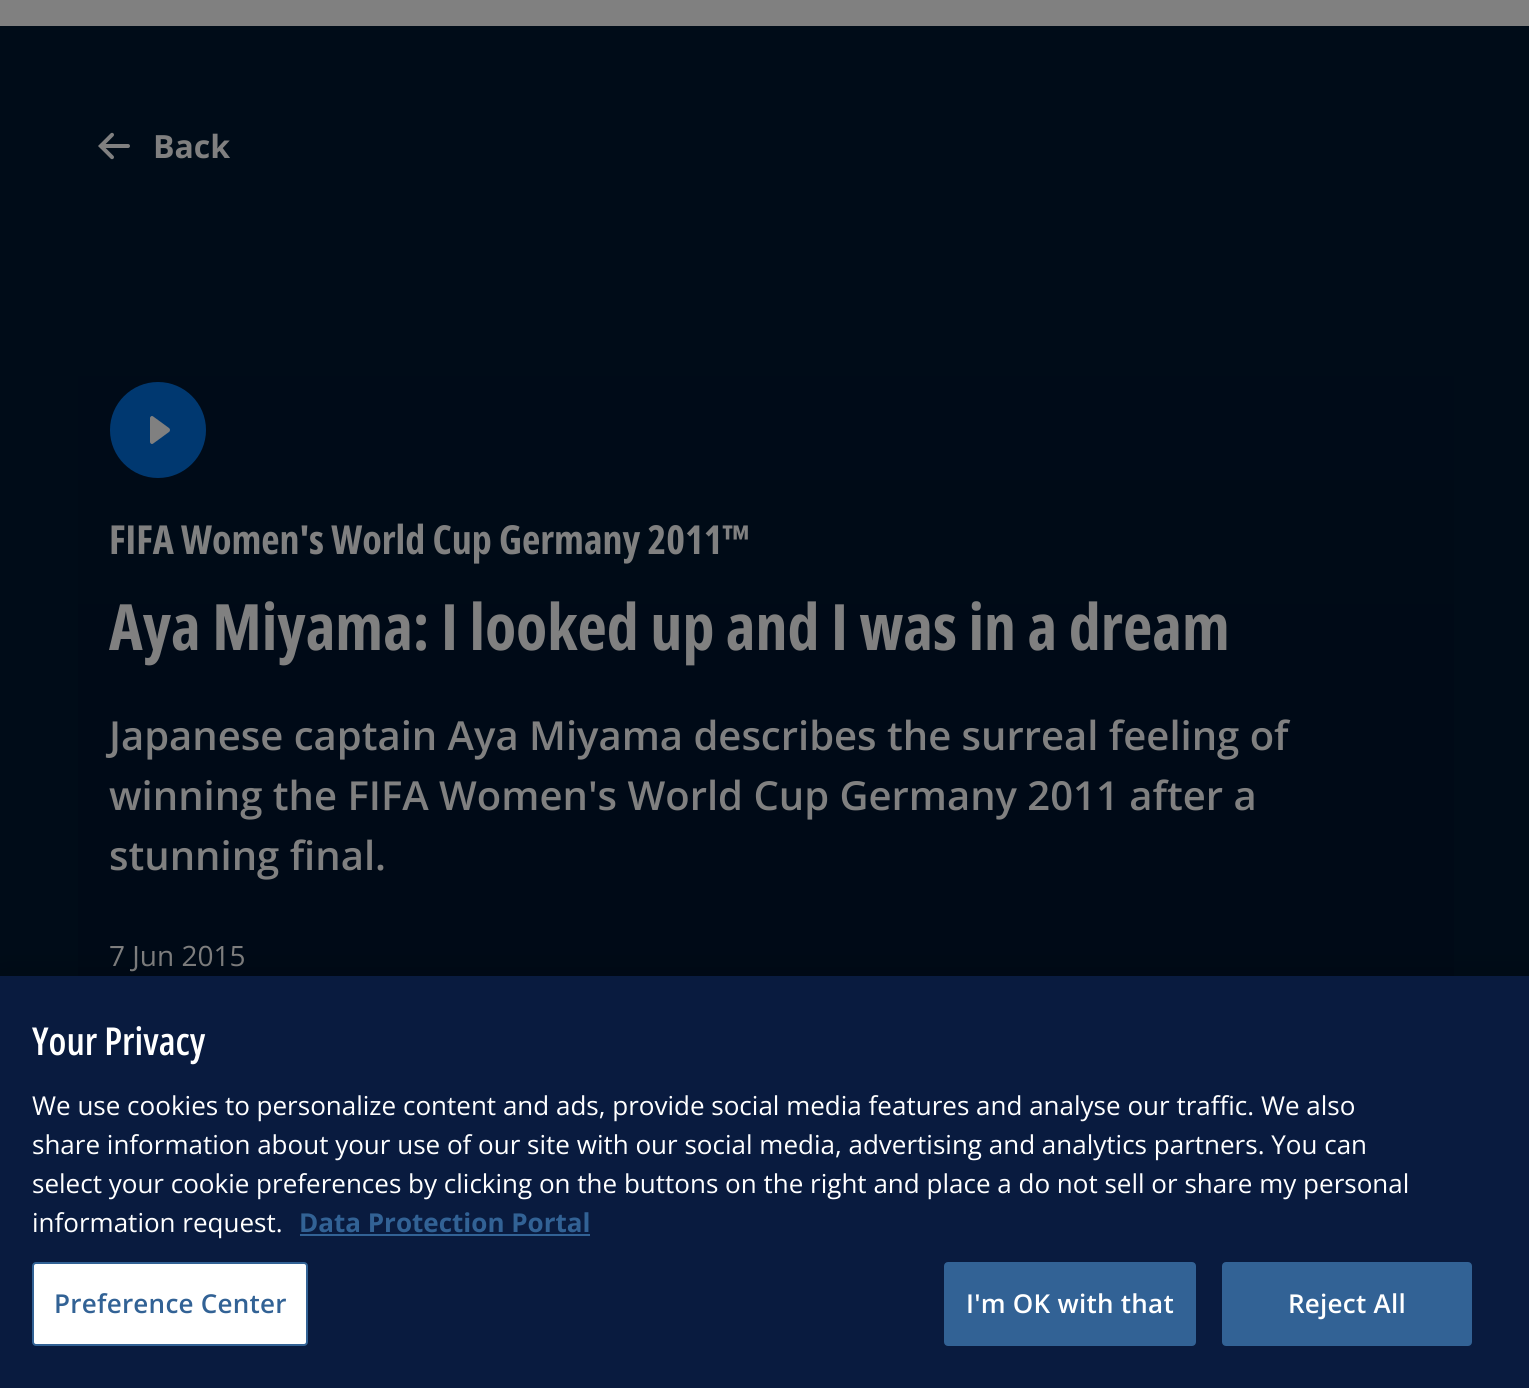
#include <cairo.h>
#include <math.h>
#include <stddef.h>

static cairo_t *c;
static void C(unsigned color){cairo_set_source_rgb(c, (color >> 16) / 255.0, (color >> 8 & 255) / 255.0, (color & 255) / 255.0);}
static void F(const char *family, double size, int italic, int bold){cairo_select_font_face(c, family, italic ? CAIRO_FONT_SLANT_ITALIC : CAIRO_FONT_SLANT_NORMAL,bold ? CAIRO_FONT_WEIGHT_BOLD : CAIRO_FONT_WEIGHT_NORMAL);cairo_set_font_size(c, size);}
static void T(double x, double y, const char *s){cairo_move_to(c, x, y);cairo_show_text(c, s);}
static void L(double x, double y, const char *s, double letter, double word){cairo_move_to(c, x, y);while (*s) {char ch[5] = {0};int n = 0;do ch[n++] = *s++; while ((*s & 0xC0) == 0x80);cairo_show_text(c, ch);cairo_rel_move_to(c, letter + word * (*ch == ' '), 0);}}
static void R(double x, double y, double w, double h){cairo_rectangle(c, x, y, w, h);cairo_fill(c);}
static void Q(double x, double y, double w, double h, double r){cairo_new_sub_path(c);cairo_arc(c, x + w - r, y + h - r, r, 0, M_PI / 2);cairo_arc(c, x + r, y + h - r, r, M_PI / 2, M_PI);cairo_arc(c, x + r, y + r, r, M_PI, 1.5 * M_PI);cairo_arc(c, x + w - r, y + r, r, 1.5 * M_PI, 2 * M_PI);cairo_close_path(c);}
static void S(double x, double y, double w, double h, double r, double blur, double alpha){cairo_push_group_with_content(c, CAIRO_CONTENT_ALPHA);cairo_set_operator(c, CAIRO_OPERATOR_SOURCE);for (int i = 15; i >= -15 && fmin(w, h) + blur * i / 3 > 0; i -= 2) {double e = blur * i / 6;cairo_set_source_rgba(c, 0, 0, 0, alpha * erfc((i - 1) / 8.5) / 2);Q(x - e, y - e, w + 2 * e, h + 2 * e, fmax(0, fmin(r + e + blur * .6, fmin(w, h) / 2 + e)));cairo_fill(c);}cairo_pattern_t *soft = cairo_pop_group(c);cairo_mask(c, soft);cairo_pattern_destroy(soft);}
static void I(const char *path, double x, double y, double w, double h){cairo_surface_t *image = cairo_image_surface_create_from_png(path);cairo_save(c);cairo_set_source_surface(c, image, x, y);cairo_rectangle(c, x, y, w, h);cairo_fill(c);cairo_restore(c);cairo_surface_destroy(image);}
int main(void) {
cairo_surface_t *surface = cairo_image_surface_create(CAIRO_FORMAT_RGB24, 1529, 1388);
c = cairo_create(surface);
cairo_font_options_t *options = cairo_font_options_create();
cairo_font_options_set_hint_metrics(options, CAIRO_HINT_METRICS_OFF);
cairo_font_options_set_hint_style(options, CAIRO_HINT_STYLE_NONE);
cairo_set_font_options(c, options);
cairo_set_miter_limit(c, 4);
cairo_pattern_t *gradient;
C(0x808080);
cairo_paint(c);
C(0x000c18);
R(0,26,1529,950);
I("1.png",98,132,32,28);
F("Open Sans",32,0,1);
C(0x808080);
T(153,158,"Back");
gradient = cairo_pattern_create_linear(766,266,766,1040);
cairo_pattern_add_color_stop_rgba(gradient,0,0,0.047,0.094,1);
cairo_pattern_add_color_stop_rgba(gradient,.6,0,0.039,0.09,1);
cairo_set_source(c,gradient);
cairo_pattern_destroy(gradient);
Q(78,266,1376,774,12);
cairo_fill(c);
C(0x003870);
cairo_arc(c,158,430,48,0,2 * M_PI);
cairo_fill(c);
I("2.png",150,416,20,28);
F("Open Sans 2",40,0,1);
C(0x808080);
T(109,554,"FIFA Women's World Cup Germany 2011™");
F("Open Sans 2",64,0,1);
T(109,650,"Aya Miyama: I looked up and I was in a dream");
F("Open Sans SemiBold",40,0,0);
T(109,750,"Japanese captain Aya Miyama describes the surreal feeling of");
T(109,810,"winning the FIFA Women's World Cup Germany 2011 after a");
T(109,870,"stunning final.");
F("Open Sans",28,0,0);
T(109,966,"7 Jun 2015");
C(0x000000);
S(0,976,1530,412,0,18,.2);
C(0x091b3f);
R(0,976,1529,412);
F("Open Sans 2 SemiBold",38.5,0,0);
C(0xffffff);
T(32,1055,"Your Privacy");
F("Open Sans",26.02,0,0);
T(32,1115,"We use cookies to personalize content and ads, provide social media features and analyse our traffic. We also");
T(32,1154,"share information about your use of our site with our social media, advertising and analytics partners. You can");
T(32,1193,"select your cookie preferences by clicking on the buttons on the right and place a do not sell or share my personal");
T(32,1232,"information request.");
F("Open Sans",26.02,0,1);
C(0x326295);
T(299,1232,"Data Protection Portal");
R(300,1234,290,2);
C(0xffffff);
Q(33,1263,274,82,3);
cairo_fill_preserve(c);
C(0x326295);
cairo_stroke(c);
F("Open Sans SemiBold",26.02,0,0);
L(54,1313,"Preference Center",.25,0);
Q(945,1263,250,82,3);
cairo_fill_preserve(c);
cairo_stroke(c);
C(0xffffff);
L(966,1313,"I'm OK with that",.25,0);
C(0x326295);
Q(1223,1263,248,82,3);
cairo_fill_preserve(c);
cairo_stroke(c);
C(0xffffff);
L(1288,1313,"Reject All",.25,0);
cairo_surface_write_to_png(surface, "o.png");
cairo_font_options_destroy(options);
cairo_destroy(c);
cairo_surface_destroy(surface);
return 0;
}
